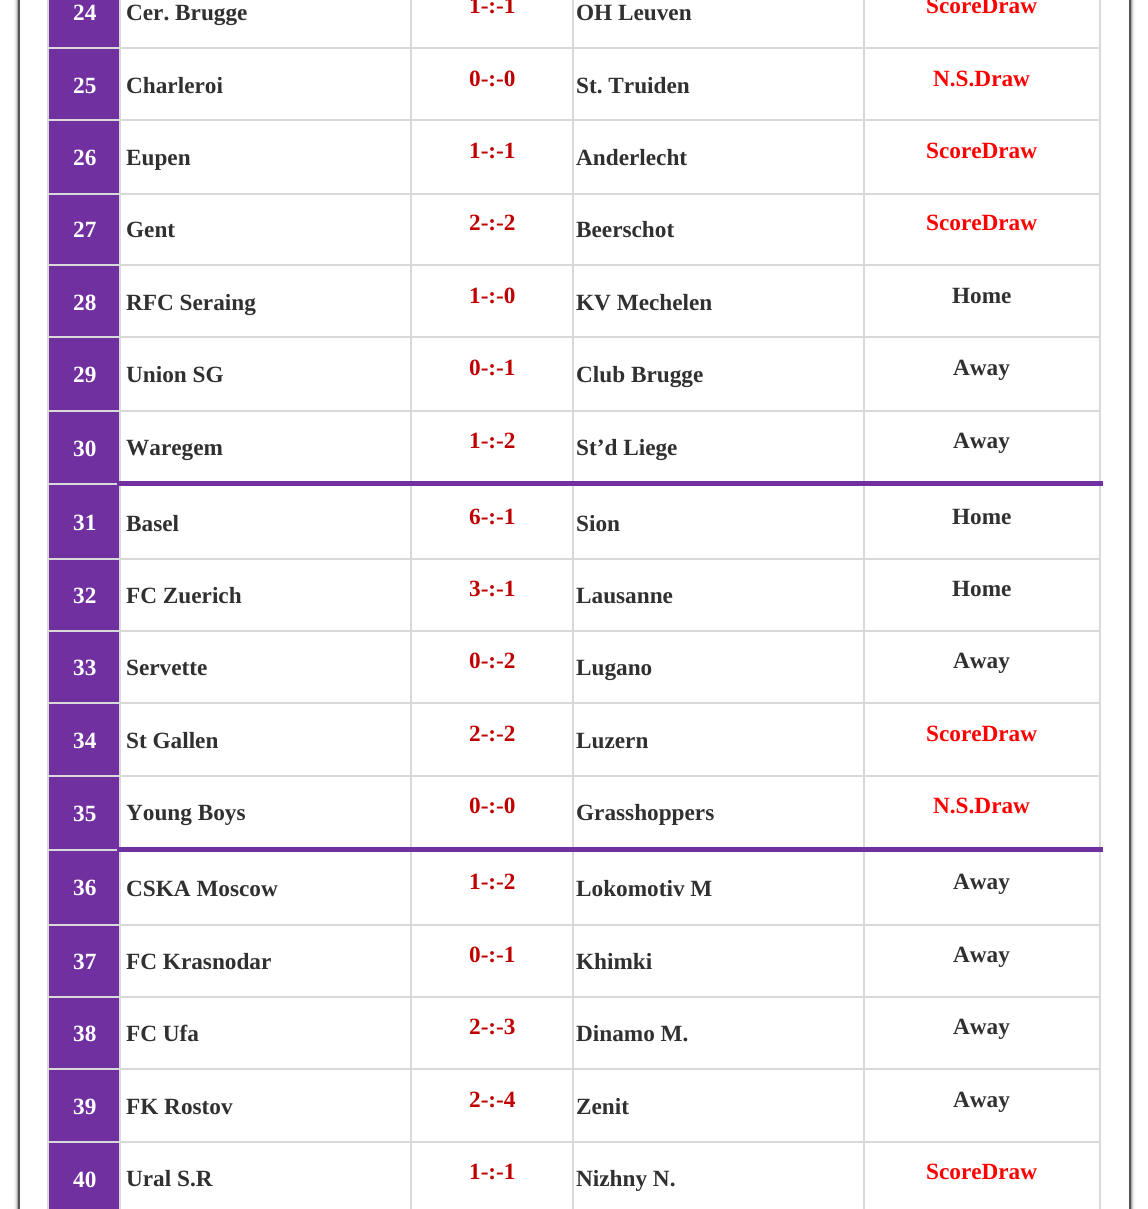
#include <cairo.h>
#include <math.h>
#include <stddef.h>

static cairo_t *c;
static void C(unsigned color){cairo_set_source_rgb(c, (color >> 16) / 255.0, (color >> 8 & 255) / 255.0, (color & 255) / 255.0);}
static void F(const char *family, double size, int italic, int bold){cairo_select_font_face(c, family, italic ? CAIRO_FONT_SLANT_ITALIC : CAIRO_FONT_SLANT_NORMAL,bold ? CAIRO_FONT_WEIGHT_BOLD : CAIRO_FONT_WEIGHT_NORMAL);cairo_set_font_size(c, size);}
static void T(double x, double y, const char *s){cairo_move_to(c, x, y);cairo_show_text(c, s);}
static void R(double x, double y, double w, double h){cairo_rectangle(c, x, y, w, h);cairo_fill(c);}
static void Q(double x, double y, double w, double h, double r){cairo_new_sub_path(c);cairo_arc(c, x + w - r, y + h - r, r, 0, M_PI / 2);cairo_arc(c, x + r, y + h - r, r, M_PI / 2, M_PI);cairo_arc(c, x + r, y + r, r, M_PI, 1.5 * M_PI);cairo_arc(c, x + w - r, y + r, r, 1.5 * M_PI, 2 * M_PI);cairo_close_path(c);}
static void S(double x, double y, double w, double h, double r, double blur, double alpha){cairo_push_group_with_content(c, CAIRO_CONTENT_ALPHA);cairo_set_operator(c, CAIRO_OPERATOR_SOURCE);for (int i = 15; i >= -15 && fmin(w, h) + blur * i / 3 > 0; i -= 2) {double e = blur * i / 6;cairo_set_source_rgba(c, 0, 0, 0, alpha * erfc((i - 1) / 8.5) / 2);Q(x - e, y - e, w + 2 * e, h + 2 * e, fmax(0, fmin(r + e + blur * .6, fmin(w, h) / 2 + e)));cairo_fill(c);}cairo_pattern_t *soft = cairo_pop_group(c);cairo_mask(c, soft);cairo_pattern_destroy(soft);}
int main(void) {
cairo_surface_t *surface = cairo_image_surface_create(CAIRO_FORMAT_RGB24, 1148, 1209);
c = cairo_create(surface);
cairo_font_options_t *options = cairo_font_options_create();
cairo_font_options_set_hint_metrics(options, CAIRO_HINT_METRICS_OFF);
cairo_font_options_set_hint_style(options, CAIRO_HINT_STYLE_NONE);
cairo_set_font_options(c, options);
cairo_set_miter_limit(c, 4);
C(0xffffff);
cairo_paint(c);
C(0x333333);
S(18,-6,1113,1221,0,2,1);
C(0xffffff);
cairo_rectangle(c,19,-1,1111,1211);
cairo_fill_preserve(c);
C(0x555555);
cairo_stroke(c);
C(0x7030a0);
R(49,0,70,47);
C(0xd9d9d9);
R(863,1141,2,68);
R(1099,0,2,1209);
R(863,1141,238,2);
R(863,1068,2,75);
R(863,1068,238,2);
R(863,996,2,73);
R(863,996,238,2);
R(863,924,2,74);
R(863,924,238,2);
R(863,775,2,151);
R(863,775,238,2);
R(863,702,2,75);
R(863,702,238,2);
R(863,630,2,74);
R(863,630,238,2);
R(863,558,2,74);
R(863,558,238,2);
R(863,410,2,150);
R(863,410,238,2);
R(863,336,2,75);
R(863,336,238,2);
R(863,264,2,74);
R(863,264,238,2);
R(863,193,2,73);
R(863,193,238,2);
R(863,119,2,75);
R(863,119,238,2);
R(863,47,2,74);
R(863,47,238,2);
R(863,0,2,49);
R(572,1141,2,68);
R(572,1141,293,2);
R(572,1068,2,75);
R(572,1068,293,2);
R(572,996,2,73);
R(572,996,293,2);
R(572,924,2,74);
R(572,924,293,2);
R(572,775,2,151);
R(572,775,293,2);
R(572,702,2,75);
R(572,702,293,2);
R(572,630,2,74);
R(572,630,293,2);
R(572,558,2,74);
R(572,558,293,2);
R(572,410,2,150);
R(572,410,293,2);
R(572,336,2,75);
R(572,336,293,2);
R(572,264,2,74);
R(572,264,293,2);
R(572,193,2,73);
R(572,193,293,2);
R(572,119,2,75);
R(572,119,293,2);
R(572,47,2,74);
R(572,47,293,2);
R(572,0,2,49);
R(410,1141,2,68);
R(410,1141,164,2);
R(410,1068,2,75);
R(410,1068,164,2);
R(410,996,2,73);
R(410,996,164,2);
R(410,924,2,74);
R(410,924,164,2);
R(410,775,2,151);
R(410,775,164,2);
R(410,702,2,75);
R(410,702,164,2);
R(410,630,2,74);
R(410,630,164,2);
R(410,558,2,74);
R(410,558,164,2);
R(410,410,2,150);
R(410,410,164,2);
R(410,336,2,75);
R(410,336,164,2);
R(410,264,2,74);
R(410,264,164,2);
R(410,193,2,73);
R(410,193,164,2);
R(410,119,2,75);
R(410,119,164,2);
R(410,47,2,74);
R(410,47,164,2);
R(410,0,2,49);
R(119,1141,2,68);
R(119,1141,292,2);
R(119,1068,2,75);
R(119,1068,292,2);
R(119,996,2,73);
R(119,996,292,2);
R(119,924,2,74);
R(119,924,292,2);
R(119,775,2,151);
R(119,775,292,2);
R(119,702,2,75);
R(119,702,292,2);
R(119,630,2,74);
R(119,630,292,2);
R(119,558,2,74);
R(119,558,292,2);
R(119,410,2,150);
R(119,410,292,2);
R(119,336,2,75);
R(119,336,292,2);
R(119,264,2,74);
R(119,264,292,2);
R(119,193,2,73);
R(119,193,292,2);
R(119,119,2,75);
R(119,119,292,2);
R(119,47,2,74);
R(119,47,292,2);
R(119,0,2,49);
R(47,1141,2,68);
R(47,1141,74,2);
R(47,1068,2,75);
R(47,1068,74,2);
R(47,996,2,73);
R(47,996,74,2);
R(47,924,2,74);
R(47,924,74,2);
R(47,849,2,77);
R(47,849,74,2);
R(47,775,2,76);
R(47,775,74,2);
R(47,702,2,75);
R(47,702,74,2);
R(47,630,2,74);
R(47,630,74,2);
R(47,558,2,74);
R(47,558,74,2);
R(47,483,2,77);
R(47,483,74,2);
R(47,410,2,75);
R(47,410,74,2);
R(47,336,2,75);
R(47,336,74,2);
R(47,264,2,74);
R(47,264,74,2);
R(47,193,2,73);
R(47,193,74,2);
R(47,119,2,75);
R(47,119,74,2);
R(47,47,2,74);
R(47,47,74,2);
R(47,0,2,49);
F("Liberation Serif",23.25,0,1);
C(0xffffff);
T(73,20,"24");
C(0x303030);
T(126,20,"Cer. Brugge");
C(0xc00000);
T(469,13,"1-:-1");
C(0x303030);
T(576,20,"OH Leuven");
C(0xff0000);
T(926,13,"ScoreDraw");
C(0x7030a0);
R(49,49,70,70);
C(0xffffff);
T(73,93,"25");
C(0x303030);
T(126,93,"Charleroi");
C(0xc00000);
T(469,86,"0-:-0");
C(0x303030);
T(576,93,"St. Truiden");
C(0xff0000);
T(933,86,"N.S.Draw");
C(0x7030a0);
R(49,121,70,72);
C(0xffffff);
T(73,165,"26");
C(0x303030);
T(126,165,"Eupen");
C(0xc00000);
T(469,158,"1-:-1");
C(0x303030);
T(576,165,"Anderlecht");
C(0xff0000);
T(926,158,"ScoreDraw");
C(0x7030a0);
R(49,195,70,69);
C(0xffffff);
T(73,237,"27");
C(0x303030);
T(126,237,"Gent");
C(0xc00000);
T(469,230,"2-:-2");
C(0x303030);
T(576,237,"Beerschot");
C(0xff0000);
T(926,230,"ScoreDraw");
C(0x7030a0);
R(49,266,70,70);
C(0xffffff);
T(73,310,"28");
C(0x303030);
T(126,310,"RFC Seraing");
C(0xc00000);
T(469,303,"1-:-0");
C(0x303030);
T(576,310,"KV Mechelen");
T(952,303,"Home");
C(0x7030a0);
R(49,338,70,72);
C(0xffffff);
T(73,382,"29");
C(0x303030);
T(126,382,"Union SG");
C(0xc00000);
T(469,375,"0-:-1");
C(0x303030);
T(576,382,"Club Brugge");
T(953,375,"Away");
C(0x7030a0);
R(49,412,70,71);
C(0xffffff);
T(73,456,"30");
C(0x303030);
T(126,455,"Waregem");
C(0xc00000);
T(469,448,"1-:-2");
C(0x303030);
T(576,455,"St’d Liege");
C(0x7030a0);
R(49,485,70,73);
R(117,481,986,5);
C(0x303030);
T(953,448,"Away");
C(0xffffff);
T(73,530,"31");
C(0x303030);
T(126,531,"Basel");
C(0xc00000);
T(469,524,"6-:-1");
C(0x303030);
T(576,531,"Sion");
T(952,524,"Home");
C(0x7030a0);
R(49,560,70,70);
C(0xffffff);
T(73,603,"32");
C(0x303030);
T(126,603,"FC Zuerich");
C(0xc00000);
T(469,596,"3-:-1");
C(0x303030);
T(576,603,"Lausanne");
T(952,596,"Home");
C(0x7030a0);
R(49,632,70,70);
C(0xffffff);
T(73,675,"33");
C(0x303030);
T(126,675,"Servette");
C(0xc00000);
T(469,668,"0-:-2");
C(0x303030);
T(576,675,"Lugano");
T(953,668,"Away");
C(0x7030a0);
R(49,704,70,71);
C(0xffffff);
T(73,748,"34");
C(0x303030);
T(126,748,"St Gallen");
C(0xc00000);
T(469,741,"2-:-2");
C(0x303030);
T(576,748,"Luzern");
C(0xff0000);
T(926,741,"ScoreDraw");
C(0x7030a0);
R(49,777,70,72);
C(0xffffff);
T(73,821,"35");
C(0x303030);
T(126,820,"Young Boys");
C(0xc00000);
T(469,813,"0-:-0");
C(0x303030);
T(576,820,"Grasshoppers");
C(0x7030a0);
R(49,851,70,73);
R(117,847,986,5);
C(0xff0000);
T(933,813,"N.S.Draw");
C(0xffffff);
T(73,895,"36");
C(0x303030);
T(126,896,"CSKA Moscow");
C(0xc00000);
T(469,889,"1-:-2");
C(0x303030);
T(576,896,"Lokomotiv M");
T(953,889,"Away");
C(0x7030a0);
R(49,926,70,70);
C(0xffffff);
T(73,969,"37");
C(0x303030);
T(126,969,"FC Krasnodar");
C(0xc00000);
T(469,962,"0-:-1");
C(0x303030);
T(576,969,"Khimki");
T(953,962,"Away");
C(0x7030a0);
R(49,998,70,70);
C(0xffffff);
T(73,1041,"38");
C(0x303030);
T(126,1041,"FC Ufa");
C(0xc00000);
T(469,1034,"2-:-3");
C(0x303030);
T(576,1041,"Dinamo M.");
T(953,1034,"Away");
C(0x7030a0);
R(49,1070,70,71);
C(0xffffff);
T(73,1114,"39");
C(0x303030);
T(126,1114,"FK Rostov");
C(0xc00000);
T(469,1107,"2-:-4");
C(0x303030);
T(576,1114,"Zenit");
T(953,1107,"Away");
C(0x7030a0);
R(49,1143,70,66);
C(0xffffff);
T(73,1187,"40");
C(0x303030);
T(126,1186,"Ural S.R");
C(0xc00000);
T(469,1179,"1-:-1");
C(0x303030);
T(576,1186,"Nizhny N.");
C(0xff0000);
T(926,1179,"ScoreDraw");
cairo_surface_write_to_png(surface, "o.png");
cairo_font_options_destroy(options);
cairo_destroy(c);
cairo_surface_destroy(surface);
return 0;
}
